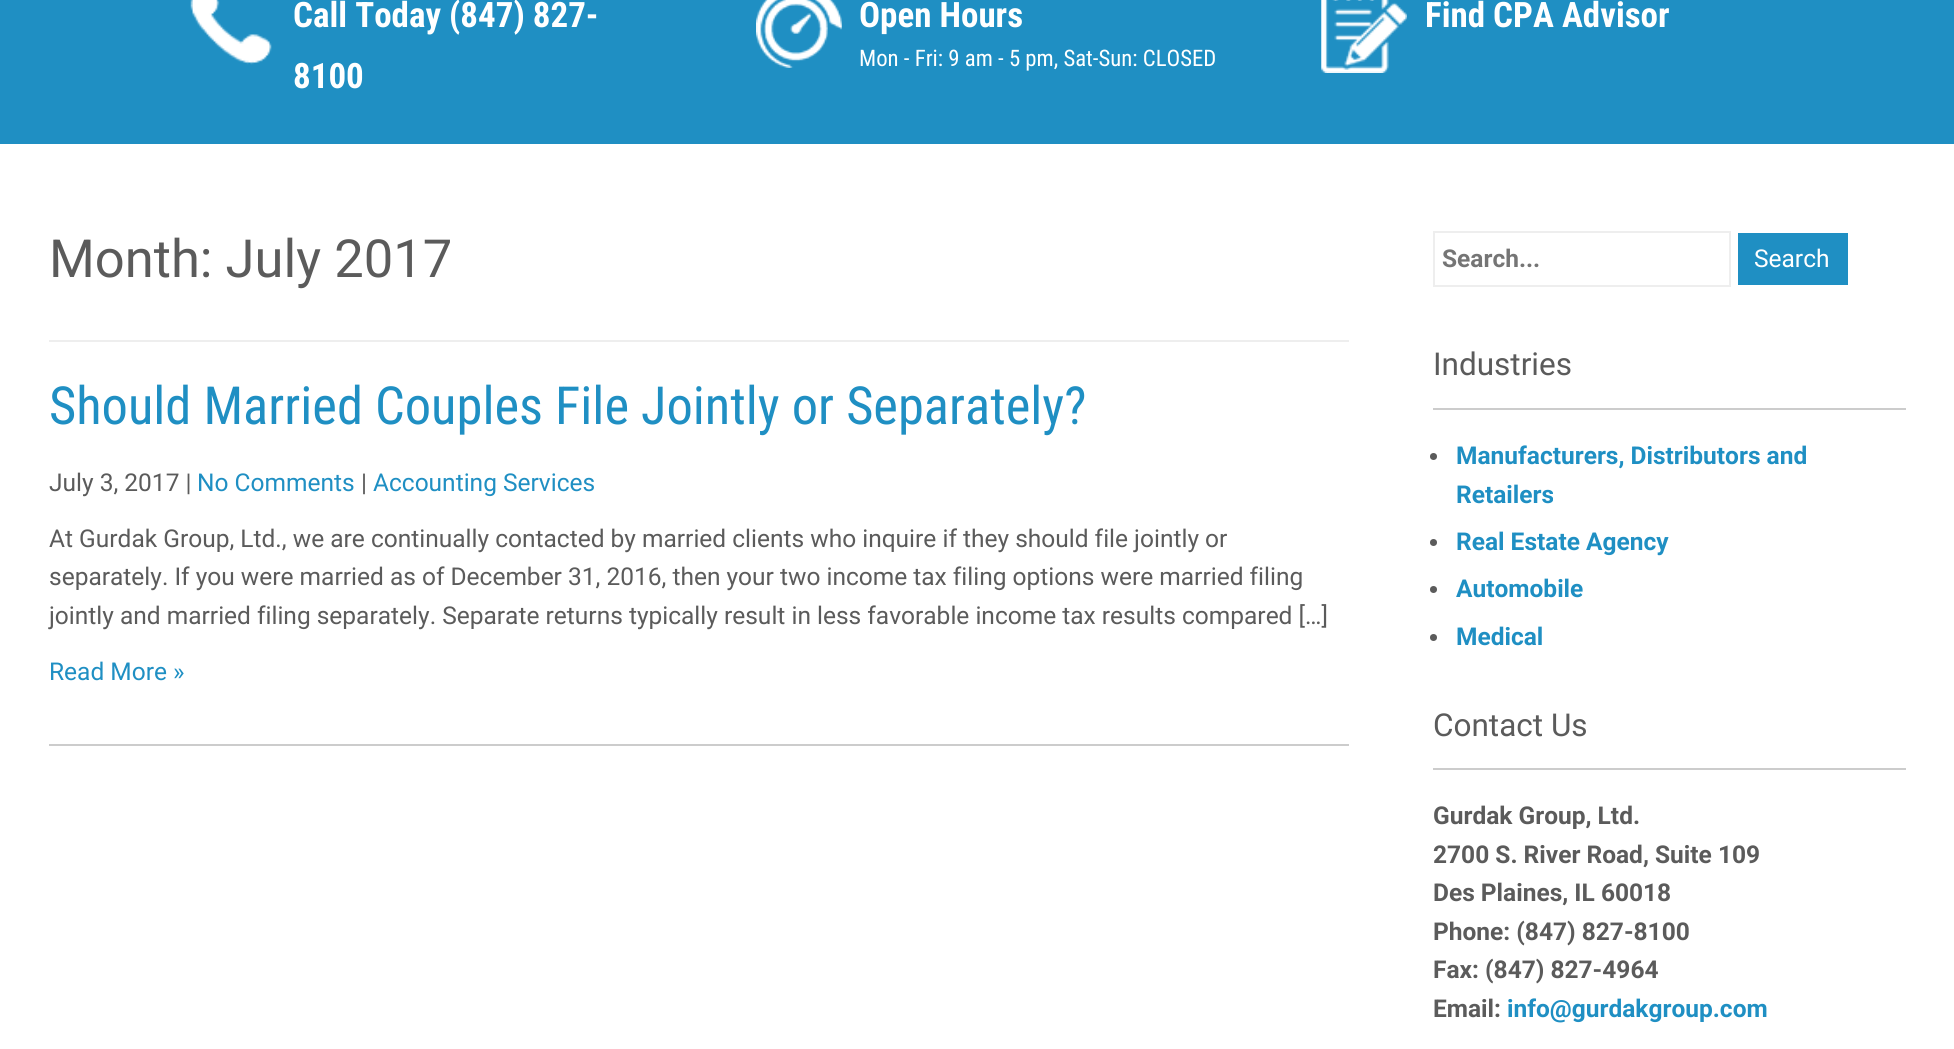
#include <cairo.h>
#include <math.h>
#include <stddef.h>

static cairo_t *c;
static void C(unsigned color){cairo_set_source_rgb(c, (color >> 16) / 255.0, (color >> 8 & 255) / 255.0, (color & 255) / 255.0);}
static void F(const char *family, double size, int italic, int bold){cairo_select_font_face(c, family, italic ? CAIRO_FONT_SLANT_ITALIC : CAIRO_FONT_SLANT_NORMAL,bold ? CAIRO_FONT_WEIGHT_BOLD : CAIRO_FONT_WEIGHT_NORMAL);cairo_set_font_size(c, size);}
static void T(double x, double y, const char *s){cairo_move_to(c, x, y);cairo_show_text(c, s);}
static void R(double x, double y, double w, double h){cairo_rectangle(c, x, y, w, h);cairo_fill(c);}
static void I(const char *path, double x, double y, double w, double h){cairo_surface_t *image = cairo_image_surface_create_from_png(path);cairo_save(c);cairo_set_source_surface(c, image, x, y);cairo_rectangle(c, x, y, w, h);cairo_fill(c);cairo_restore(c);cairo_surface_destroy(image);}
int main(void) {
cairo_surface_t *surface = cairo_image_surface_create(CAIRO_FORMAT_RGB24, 1954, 1049);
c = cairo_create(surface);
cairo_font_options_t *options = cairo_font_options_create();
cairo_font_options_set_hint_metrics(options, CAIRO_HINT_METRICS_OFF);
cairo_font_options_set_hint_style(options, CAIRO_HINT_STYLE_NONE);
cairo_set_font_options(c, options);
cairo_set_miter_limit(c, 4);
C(0xffffff);
cairo_paint(c);
C(0x1f8fc3);
R(0,0,1954,144);
I("1.png",190,0,82,65);
F("Roboto Condensed",35,0,1);
C(0xffffff);
T(293,27,"Call Today (847) 827-");
T(293,88,"8100");
I("2.png",756,0,86,68);
T(859,27,"Open Hours");
F("Roboto Condensed",22.75,0,0);
T(859,66,"Mon - Fri: 9 am - 5 pm, Sat-Sun: CLOSED");
I("3.png",1321,0,86,73);
F("Roboto Condensed",35,0,1);
T(1425,27,"Find CPA Advisor");
C(0xeeeeee);
R(49,340,1300,2);
F("Roboto",52.5,0,0);
C(0x5b5b5b);
T(49,277,"Month: July 2017");
C(0xcccccc);
R(49,744,1300,2);
F("Roboto Condensed",52.5,0,0);
C(0x1f8fc3);
T(49,424,"Should Married Couples File Jointly or Separately?");
F("Roboto",24.5,0,0);
C(0x5b5b5b);
T(49,491,"July 3, 2017 |");
C(0x1f8fc3);
T(197,491,"No Comments");
C(0x5b5b5b);
T(361,491,"|");
C(0x1f8fc3);
T(373,491,"Accounting Services");
C(0x5b5b5b);
T(49,547,"At Gurdak Group, Ltd., we are continually contacted by married clients who inquire if they should file jointly or");
T(49,585,"separately. If you were married as of December 31, 2016, then your two income tax filing options were married filing");
T(49,624,"jointly and married filing separately. Separate returns typically result in less favorable income tax results compared […]");
C(0x1f8fc3);
T(49,680,"Read More »");
cairo_rectangle(c,1434,232,296,54);
C(0xeeeeee);
cairo_stroke(c);
F("Roboto",24.5,0,1);
C(0x757575);
T(1442,267,"Search...");
C(0x1f8fc3);
R(1738,233,110,52);
F("Roboto",24.5,0,0);
C(0xffffff);
T(1754,267,"Search");
C(0xcccccc);
R(1433,408,473,2);
F("Roboto",31.5,0,0);
C(0x5b5b5b);
T(1433,375,"Industries");
cairo_new_path(c);
cairo_arc(c,1433.5,456.5,3.5,0,2 * M_PI);
cairo_fill(c);
F("Roboto",24.5,0,1);
C(0x1f8fc3);
T(1456,464,"Manufacturers, Distributors and");
T(1456,503,"Retailers");
C(0x5b5b5b);
cairo_new_path(c);
cairo_arc(c,1433.5,542.5,3.5,0,2 * M_PI);
cairo_fill(c);
C(0x1f8fc3);
T(1456,550,"Real Estate Agency");
C(0x5b5b5b);
cairo_new_path(c);
cairo_arc(c,1433.5,589.5,3.5,0,2 * M_PI);
cairo_fill(c);
C(0x1f8fc3);
T(1456,597,"Automobile");
C(0x5b5b5b);
cairo_new_path(c);
cairo_arc(c,1433.5,637.5,3.5,0,2 * M_PI);
cairo_fill(c);
C(0x1f8fc3);
T(1456,645,"Medical");
C(0xcccccc);
R(1433,768,473,2);
F("Roboto",31.5,0,0);
C(0x5b5b5b);
T(1433,736,"Contact Us");
F("Roboto",24.5,0,1);
T(1433,824,"Gurdak Group, Ltd.");
T(1433,863,"2700 S. River Road, Suite 109");
T(1433,901,"Des Plaines, IL 60018");
T(1433,940,"Phone: (847) 827-8100");
T(1433,978,"Fax: (847) 827-4964");
T(1433,1017,"Email:");
C(0x1f8fc3);
T(1507,1017,"info@gurdakgroup.com");
cairo_surface_write_to_png(surface, "o.png");
cairo_font_options_destroy(options);
cairo_destroy(c);
cairo_surface_destroy(surface);
return 0;
}
